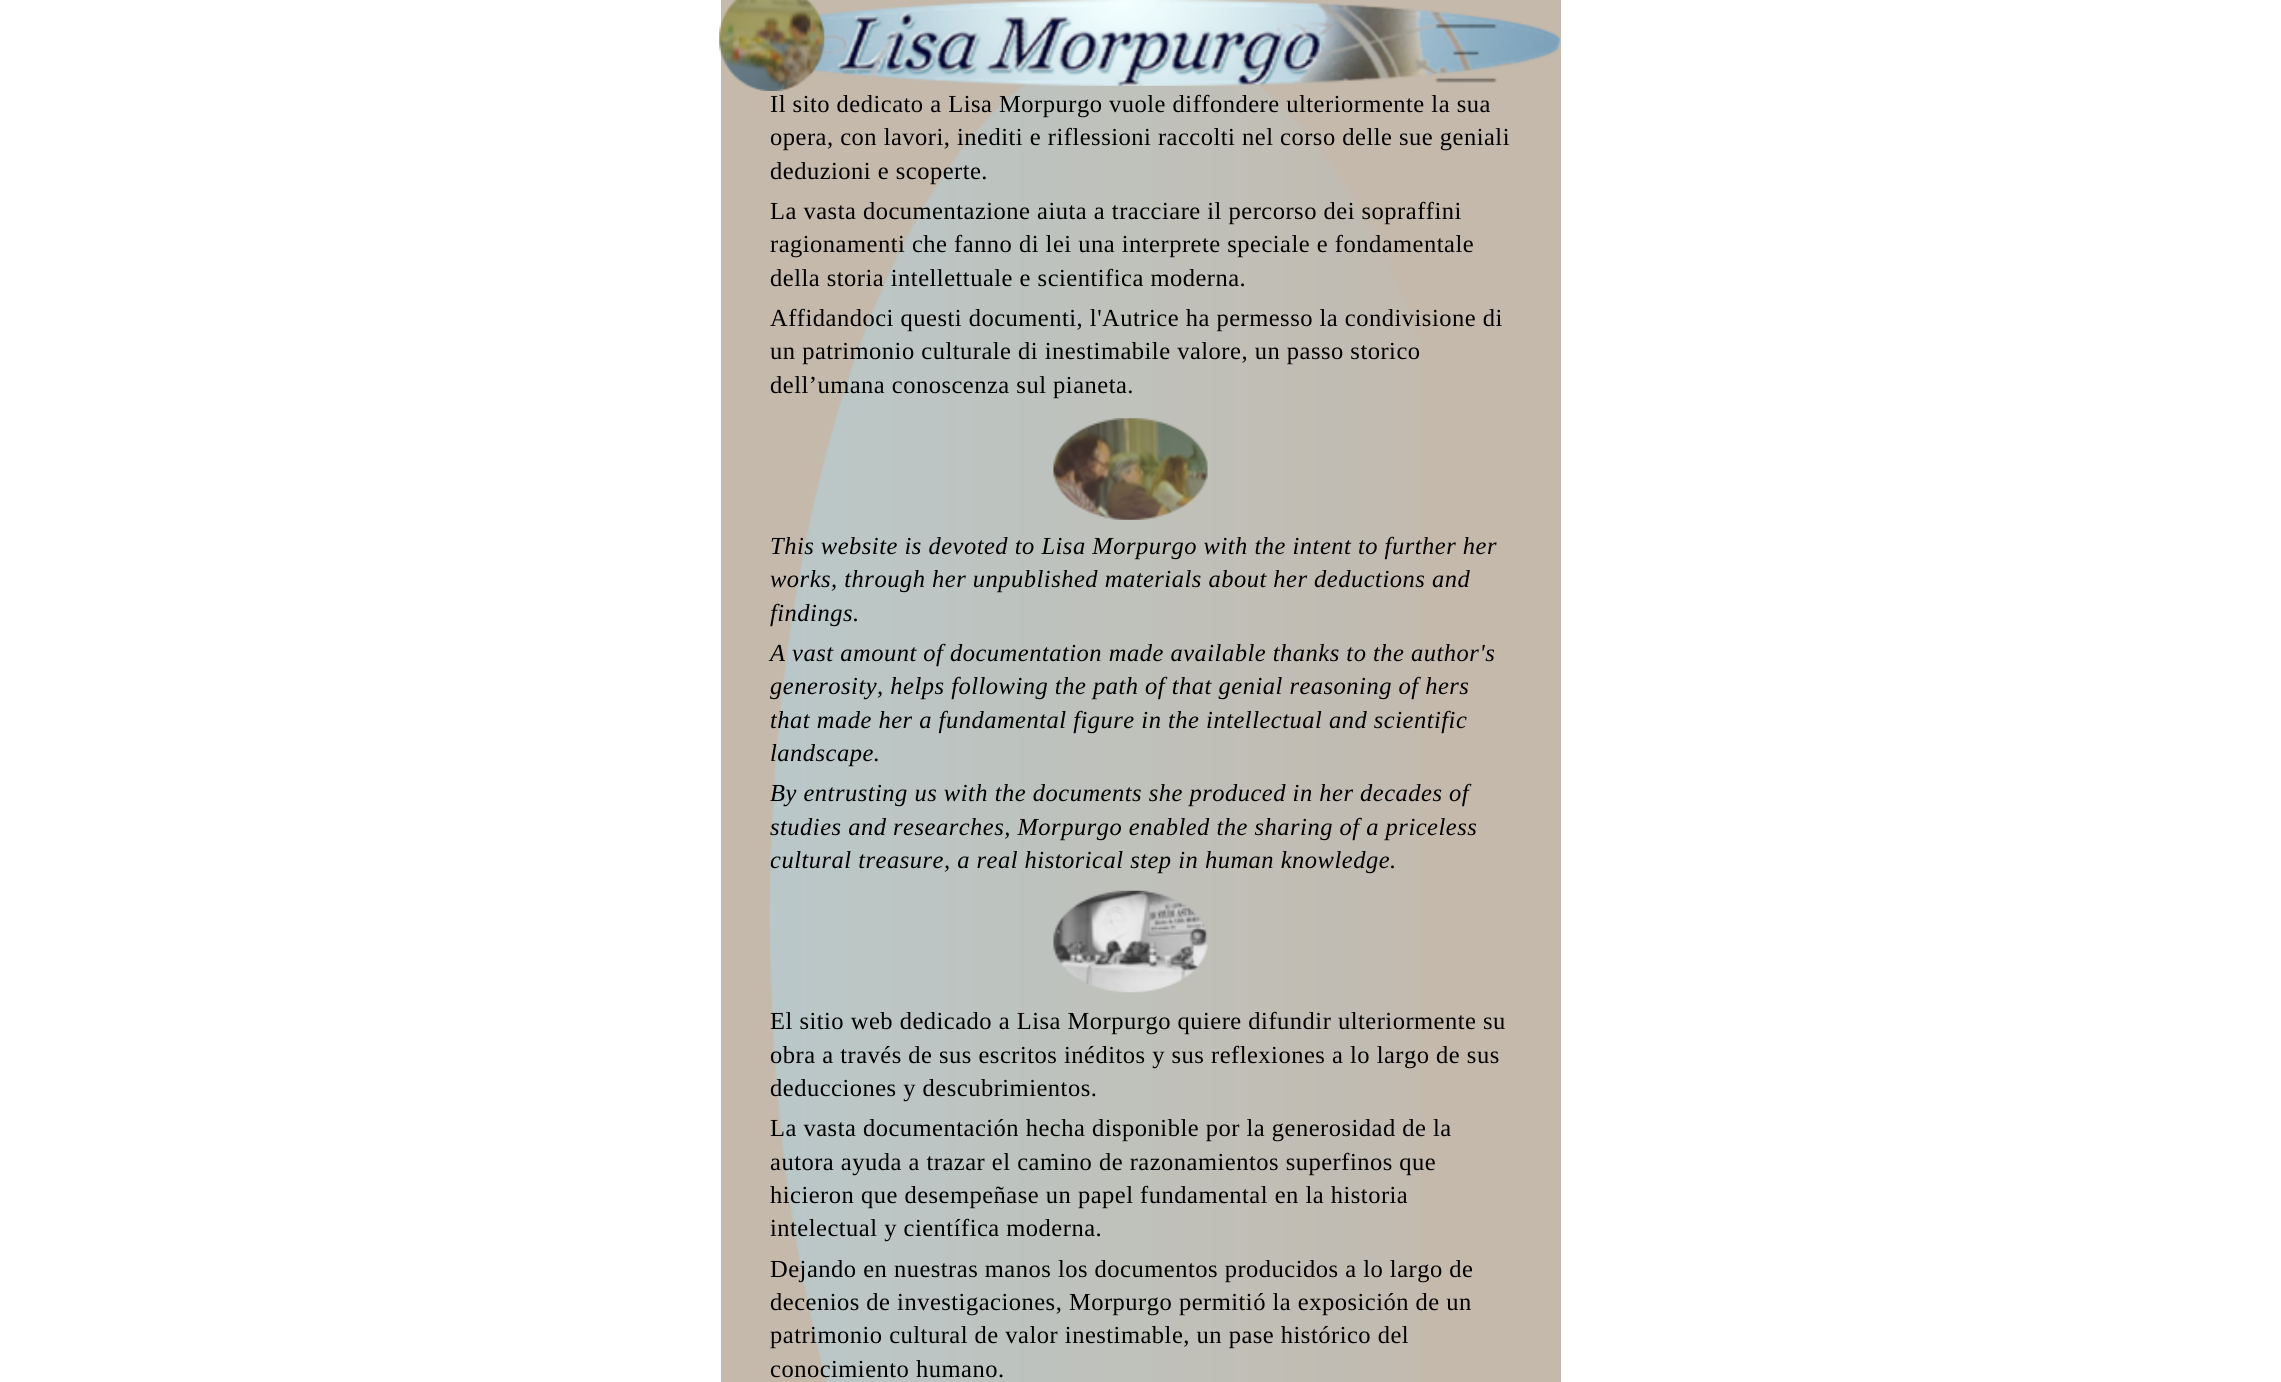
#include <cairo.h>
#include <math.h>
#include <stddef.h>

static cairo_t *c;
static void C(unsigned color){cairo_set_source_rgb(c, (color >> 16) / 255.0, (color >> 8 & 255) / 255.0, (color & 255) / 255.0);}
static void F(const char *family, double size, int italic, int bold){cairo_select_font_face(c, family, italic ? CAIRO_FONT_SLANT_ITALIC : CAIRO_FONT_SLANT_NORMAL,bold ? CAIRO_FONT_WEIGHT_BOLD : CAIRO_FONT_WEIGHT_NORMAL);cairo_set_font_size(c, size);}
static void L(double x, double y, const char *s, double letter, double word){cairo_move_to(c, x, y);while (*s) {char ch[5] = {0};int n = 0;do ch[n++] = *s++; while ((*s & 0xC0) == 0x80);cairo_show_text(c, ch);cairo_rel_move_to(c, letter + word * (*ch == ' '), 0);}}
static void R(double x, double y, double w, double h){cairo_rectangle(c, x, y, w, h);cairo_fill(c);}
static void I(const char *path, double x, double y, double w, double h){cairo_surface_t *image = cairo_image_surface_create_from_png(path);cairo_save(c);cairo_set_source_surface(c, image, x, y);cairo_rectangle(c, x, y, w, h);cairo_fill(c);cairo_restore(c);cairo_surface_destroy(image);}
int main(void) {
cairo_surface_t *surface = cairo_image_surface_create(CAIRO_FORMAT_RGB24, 2281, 1382);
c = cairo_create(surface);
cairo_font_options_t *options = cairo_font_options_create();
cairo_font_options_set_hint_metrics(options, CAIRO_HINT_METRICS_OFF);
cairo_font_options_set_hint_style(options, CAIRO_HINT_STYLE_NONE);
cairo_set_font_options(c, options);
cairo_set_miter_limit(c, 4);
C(0xffffff);
cairo_paint(c);
C(0xc4b9ab);
R(721,0,840,1382);
I("4.png",770,81,650,1301);
I("2.png",721,0,840,84);
I("3.png",721,1,840,85);
I("1.png",719,0,106,91);
F("Liberation Serif",24.5,0,0);
C(0x000000);
L(770,112,"Il sito dedicato a Lisa Morpurgo vuole diffondere ulteriormente la sua",.5,0);
L(770,145,"opera, con lavori, inediti e riflessioni raccolti nel corso delle sue geniali",.5,0);
L(770,179,"deduzioni e scoperte.",.5,0);
L(770,219,"La vasta documentazione aiuta a tracciare il percorso dei sopraffini",.5,0);
L(770,252,"ragionamenti che fanno di lei una interprete speciale e fondamentale",.5,0);
L(770,286,"della storia intellettuale e scientifica moderna.",.5,0);
L(770,326,"Affidandoci questi documenti, l'Autrice ha permesso la condivisione di",.5,0);
L(770,359,"un patrimonio culturale di inestimabile valore, un passo storico",.5,0);
L(770,393,"dell’umana conoscenza sul pianeta.",.5,0);
F("Liberation Serif",24.5,1,0);
L(770,554,"This website is devoted to Lisa Morpurgo with the intent to further her",.5,0);
L(770,587,"works, through her unpublished materials about her deductions and",.5,0);
L(770,621,"findings.",.5,0);
L(770,661,"A vast amount of documentation made available thanks to the author's",.5,0);
L(770,694,"generosity, helps following the path of that genial reasoning of hers",.5,0);
L(770,728,"that made her a fundamental figure in the intellectual and scientific",.5,0);
L(770,761,"landscape.",.5,0);
L(770,801,"By entrusting us with the documents she produced in her decades of",.5,0);
L(770,835,"studies and researches, Morpurgo enabled the sharing of a priceless",.5,0);
L(770,868,"cultural treasure, a real historical step in human knowledge.",.5,0);
F("Liberation Serif",24.5,0,0);
L(770,1029,"El sitio web dedicado a Lisa Morpurgo quiere difundir ulteriormente su",.5,0);
L(770,1063,"obra a través de sus escritos inéditos y sus reflexiones a lo largo de sus",.5,0);
L(770,1096,"deducciones y descubrimientos.",.5,0);
L(770,1136,"La vasta documentación hecha disponible por la generosidad de la",.5,0);
L(770,1170,"autora ayuda a trazar el camino de razonamientos superfinos que",.5,0);
L(770,1203,"hicieron que desempeñase un papel fundamental en la historia",.5,0);
L(770,1236,"intelectual y científica moderna.",.5,0);
L(770,1277,"Dejando en nuestras manos los documentos producidos a lo largo de",.5,0);
L(770,1310,"decenios de investigaciones, Morpurgo permitió la exposición de un",.5,0);
L(770,1343,"patrimonio cultural de valor inestimable, un pase histórico del",.5,0);
L(770,1377,"conocimiento humano.",.5,0);
I("5.png",1053,418,155,102);
I("6.png",1053,890,155,103);
cairo_surface_write_to_png(surface, "o.png");
cairo_font_options_destroy(options);
cairo_destroy(c);
cairo_surface_destroy(surface);
return 0;
}
